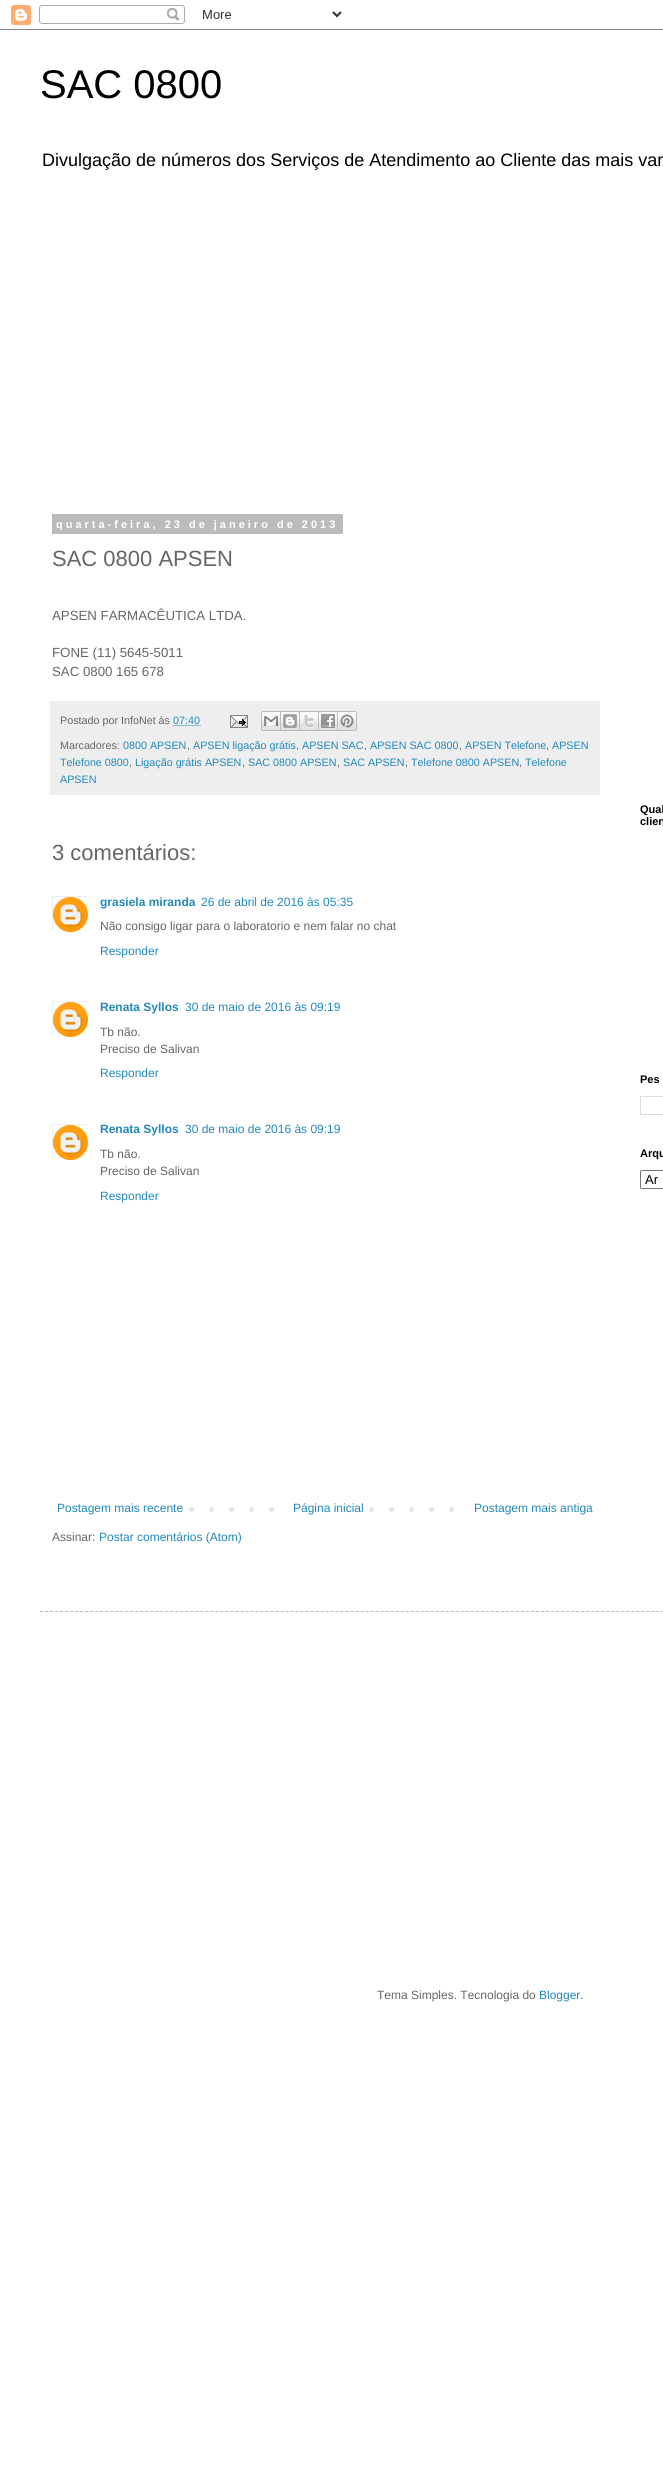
#include <cairo.h>
#include <math.h>
#include <stddef.h>

static cairo_t *c;
static void C(unsigned color){cairo_set_source_rgb(c, (color >> 16) / 255.0, (color >> 8 & 255) / 255.0, (color & 255) / 255.0);}
static void F(const char *family, double size, int italic, int bold){cairo_select_font_face(c, family, italic ? CAIRO_FONT_SLANT_ITALIC : CAIRO_FONT_SLANT_NORMAL,bold ? CAIRO_FONT_WEIGHT_BOLD : CAIRO_FONT_WEIGHT_NORMAL);cairo_set_font_size(c, size);}
static void T(double x, double y, const char *s){cairo_move_to(c, x, y);cairo_show_text(c, s);}
static void L(double x, double y, const char *s, double letter, double word){cairo_move_to(c, x, y);while (*s) {char ch[5] = {0};int n = 0;do ch[n++] = *s++; while ((*s & 0xC0) == 0x80);cairo_show_text(c, ch);cairo_rel_move_to(c, letter + word * (*ch == ' '), 0);}}
static void R(double x, double y, double w, double h){cairo_rectangle(c, x, y, w, h);cairo_fill(c);}
static void Q(double x, double y, double w, double h, double r){cairo_new_sub_path(c);cairo_arc(c, x + w - r, y + h - r, r, 0, M_PI / 2);cairo_arc(c, x + r, y + h - r, r, M_PI / 2, M_PI);cairo_arc(c, x + r, y + r, r, M_PI, 1.5 * M_PI);cairo_arc(c, x + w - r, y + r, r, 1.5 * M_PI, 2 * M_PI);cairo_close_path(c);}
static void I(const char *path, double x, double y, double w, double h){cairo_surface_t *image = cairo_image_surface_create_from_png(path);cairo_save(c);cairo_set_source_surface(c, image, x, y);cairo_rectangle(c, x, y, w, h);cairo_fill(c);cairo_restore(c);cairo_surface_destroy(image);}
int main(void) {
cairo_surface_t *surface = cairo_image_surface_create(CAIRO_FORMAT_RGB24, 663, 2467);
c = cairo_create(surface);
cairo_font_options_t *options = cairo_font_options_create();
cairo_font_options_set_hint_metrics(options, CAIRO_HINT_METRICS_OFF);
cairo_font_options_set_hint_style(options, CAIRO_HINT_STYLE_NONE);
cairo_set_font_options(c, options);
cairo_set_miter_limit(c, 4);
C(0xffffff);
cairo_paint(c);
I("1.png",0,5,663,25);
F("Liberation Sans",40,0,0);
C(0x000000);
T(40,98,"SAC 0800");
F("Liberation Sans",18,0,0);
T(42,166,"Divulgação de números dos Serviços de Atendimento ao Cliente das mais var");
C(0xbbbbbb);
R(52,514,291,20);
F("Liberation Sans",11,0,1);
C(0xffffff);
L(56,528,"quarta-feira, 23 de janeiro de 2013",3,0);
F("Liberation Sans",22,0,0);
C(0x666666);
T(52,566,"SAC 0800 APSEN");
F("Liberation Sans",13.25,0,0);
T(52,620,"APSEN FARMACÊUTICA LTDA.");
T(52,657,"FONE (11) 5645-5011");
T(52,676,"SAC 0800 165 678");
C(0xeeeeee);
R(50,701,550,94);
F("Liberation Sans",10.75,0,0);
C(0x666666);
T(60,724,"Postado por InfoNet às");
C(0x2288bb);
T(173,724,"07:40");
cairo_new_path(c);
cairo_move_to(c,173.5,725.5);
cairo_line_to(c,200.5,725.5);
cairo_set_line_width(c,1);
cairo_set_dash(c,(double[]){1,1},2,0);
cairo_stroke(c);
I("2.png",230,715,18,13);
I("3.png",261,711,20,20);
I("4.png",281,711,19,20);
I("5.png",300,711,19,20);
I("6.png",319,711,19,20);
I("7.png",338,711,19,20);
C(0x666666);
T(60,749,"Marcadores:");
C(0x2288bb);
T(123,749,"0800 APSEN");
C(0x666666);
T(187,749,",");
C(0x2288bb);
T(193,749,"APSEN ligação grátis");
C(0x666666);
T(296,749,",");
C(0x2288bb);
T(302,749,"APSEN SAC");
C(0x666666);
T(364,749,",");
C(0x2288bb);
T(370,749,"APSEN SAC 0800");
C(0x666666);
T(459,749,",");
C(0x2288bb);
T(465,749,"APSEN Telefone");
C(0x666666);
T(546,749,",");
C(0x2288bb);
T(552,749,"APSEN");
T(60,766,"Telefone 0800");
C(0x666666);
T(129,766,",");
C(0x2288bb);
T(135,766,"Ligação grátis APSEN");
C(0x666666);
T(242,766,",");
C(0x2288bb);
T(248,766,"SAC 0800 APSEN");
C(0x666666);
T(337,766,",");
C(0x2288bb);
T(343,766,"SAC APSEN");
C(0x666666);
T(405,766,",");
C(0x2288bb);
T(411,766,"Telefone 0800 APSEN");
C(0x666666);
T(519,766,",");
C(0x2288bb);
T(525,766,"Telefone");
T(60,783,"APSEN");
F("Liberation Sans",22,0,0);
C(0x666666);
T(52,860,"3 comentários:");
cairo_save(c);
cairo_rectangle(c,52,896,36,36);
cairo_clip(c);
cairo_rectangle(c,52.5,896.5,36,36);
C(0xeeeeee);
cairo_set_dash(c,NULL,0,0);
cairo_stroke(c);
cairo_restore(c);
I("8.png",53,897,35,35);
F("Liberation Sans",12,0,1);
C(0x2288bb);
T(100,906,"grasiela miranda");
F("Liberation Sans",12,0,0);
T(201,906,"26 de abril de 2016 às 05:35");
C(0x666666);
T(100,930,"Não consigo ligar para o laboratorio e nem falar no chat");
C(0x2288bb);
T(100,955,"Responder");
cairo_save(c);
cairo_rectangle(c,52,1001,36,36);
cairo_clip(c);
cairo_rectangle(c,52.5,1001.5,36,36);
C(0xeeeeee);
cairo_set_dash(c,NULL,0,0);
cairo_stroke(c);
cairo_restore(c);
I("8.png",53,1002,35,35);
F("Liberation Sans",12,0,1);
T(100,1011,"Renata Syllos");
F("Liberation Sans",12,0,0);
T(185,1011,"30 de maio de 2016 às 09:19");
C(0x666666);
T(100,1036,"Tb não.");
T(100,1053,"Preciso de Salivan");
C(0x2288bb);
T(100,1077,"Responder");
cairo_save(c);
cairo_rectangle(c,52,1124,36,36);
cairo_clip(c);
cairo_rectangle(c,52.5,1124.5,36,36);
C(0xeeeeee);
cairo_set_dash(c,NULL,0,0);
cairo_stroke(c);
cairo_restore(c);
I("8.png",53,1125,35,35);
F("Liberation Sans",12,0,1);
T(100,1133,"Renata Syllos");
F("Liberation Sans",12,0,0);
T(185,1133,"30 de maio de 2016 às 09:19");
C(0x666666);
T(100,1158,"Tb não.");
T(100,1175,"Preciso de Salivan");
C(0x2288bb);
T(100,1200,"Responder");
I("9.png",189,1507,265,5);
T(57,1512,"Postagem mais recente");
C(0xffffff);
R(289,1507,66,5);
C(0x2288bb);
T(293,1512,"Página inicial");
T(474,1512,"Postagem mais antiga");
C(0x666666);
T(52,1541,"Assinar:");
C(0x2288bb);
T(99,1541,"Postar comentários (Atom)");
F("Liberation Sans",11,0,1);
C(0x000000);
T(640,813,"Qual");
T(640,825,"clien");
T(640,1083,"Pes");
cairo_rectangle(c,640.5,1096.5,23,18);
C(0xdddddd);
cairo_set_dash(c,NULL,0,0);
cairo_stroke(c);
C(0x000000);
T(640,1157,"Arqu");
Q(640.5,1170.5,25,18,1.5);
C(0x767676);
cairo_stroke(c);
F("Liberation Sans",13,0,0);
C(0x000000);
T(645,1184,"Ar");
cairo_new_path(c);
cairo_move_to(c,40,1611.5);
cairo_line_to(c,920,1611.5);
C(0xbbbbbb);
cairo_set_dash(c,(double[]){3,2.01},2,0);
cairo_stroke(c);
F("Liberation Sans",12,0,0);
C(0x666666);
T(377,1999,"Tema Simples. Tecnologia do");
C(0x2288bb);
T(539,1999,"Blogger");
C(0x666666);
T(580,1999,".");
cairo_surface_write_to_png(surface, "o.png");
cairo_font_options_destroy(options);
cairo_destroy(c);
cairo_surface_destroy(surface);
return 0;
}
